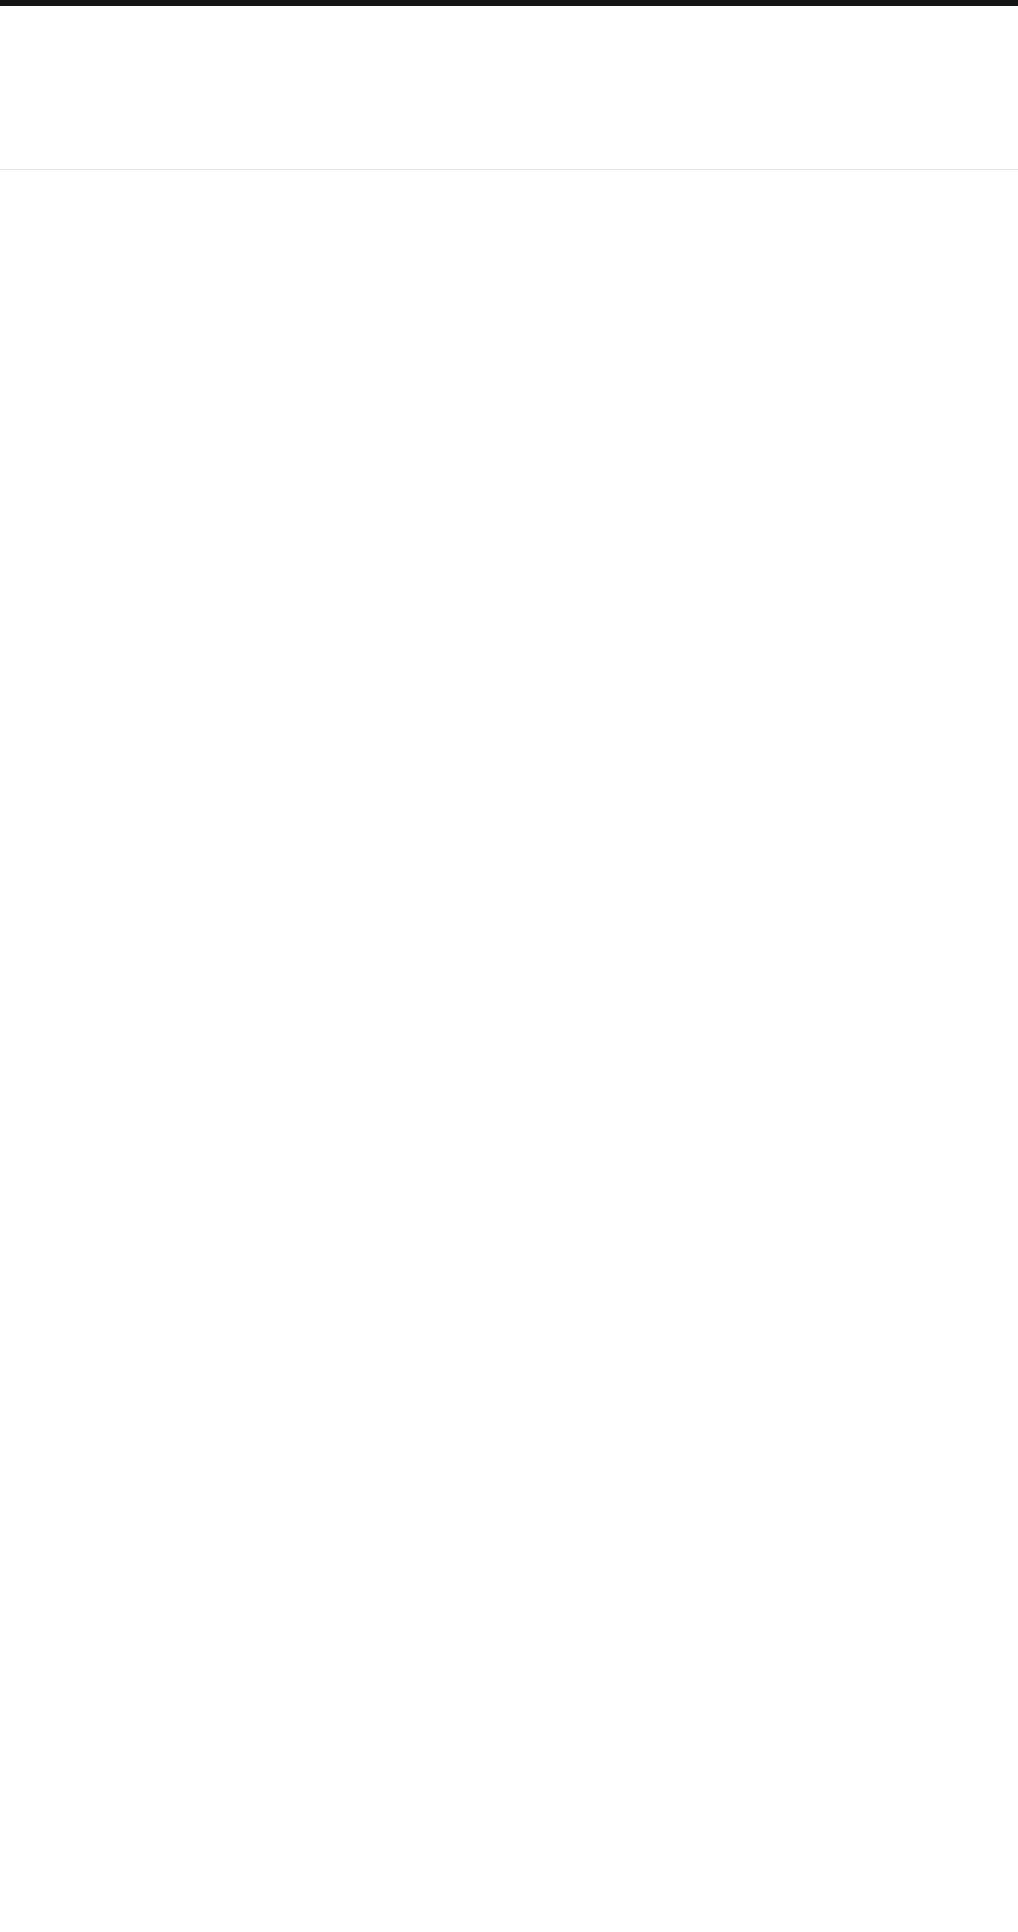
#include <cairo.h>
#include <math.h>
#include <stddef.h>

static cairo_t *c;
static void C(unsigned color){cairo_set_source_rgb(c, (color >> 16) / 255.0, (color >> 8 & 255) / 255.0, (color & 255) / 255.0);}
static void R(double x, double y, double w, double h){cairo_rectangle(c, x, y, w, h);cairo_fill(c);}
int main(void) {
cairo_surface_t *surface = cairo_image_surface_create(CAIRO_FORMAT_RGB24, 1018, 1932);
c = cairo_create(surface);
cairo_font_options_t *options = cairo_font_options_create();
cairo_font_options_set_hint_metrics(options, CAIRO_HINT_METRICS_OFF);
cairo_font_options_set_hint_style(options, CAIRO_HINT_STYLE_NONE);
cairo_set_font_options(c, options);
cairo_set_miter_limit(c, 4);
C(0xffffff);
cairo_paint(c);
C(0xe5e5e6);
R(0,169,1018,1);
C(0x141415);
R(0,0,1018,6);
cairo_surface_write_to_png(surface, "o.png");
cairo_font_options_destroy(options);
cairo_destroy(c);
cairo_surface_destroy(surface);
return 0;
}
